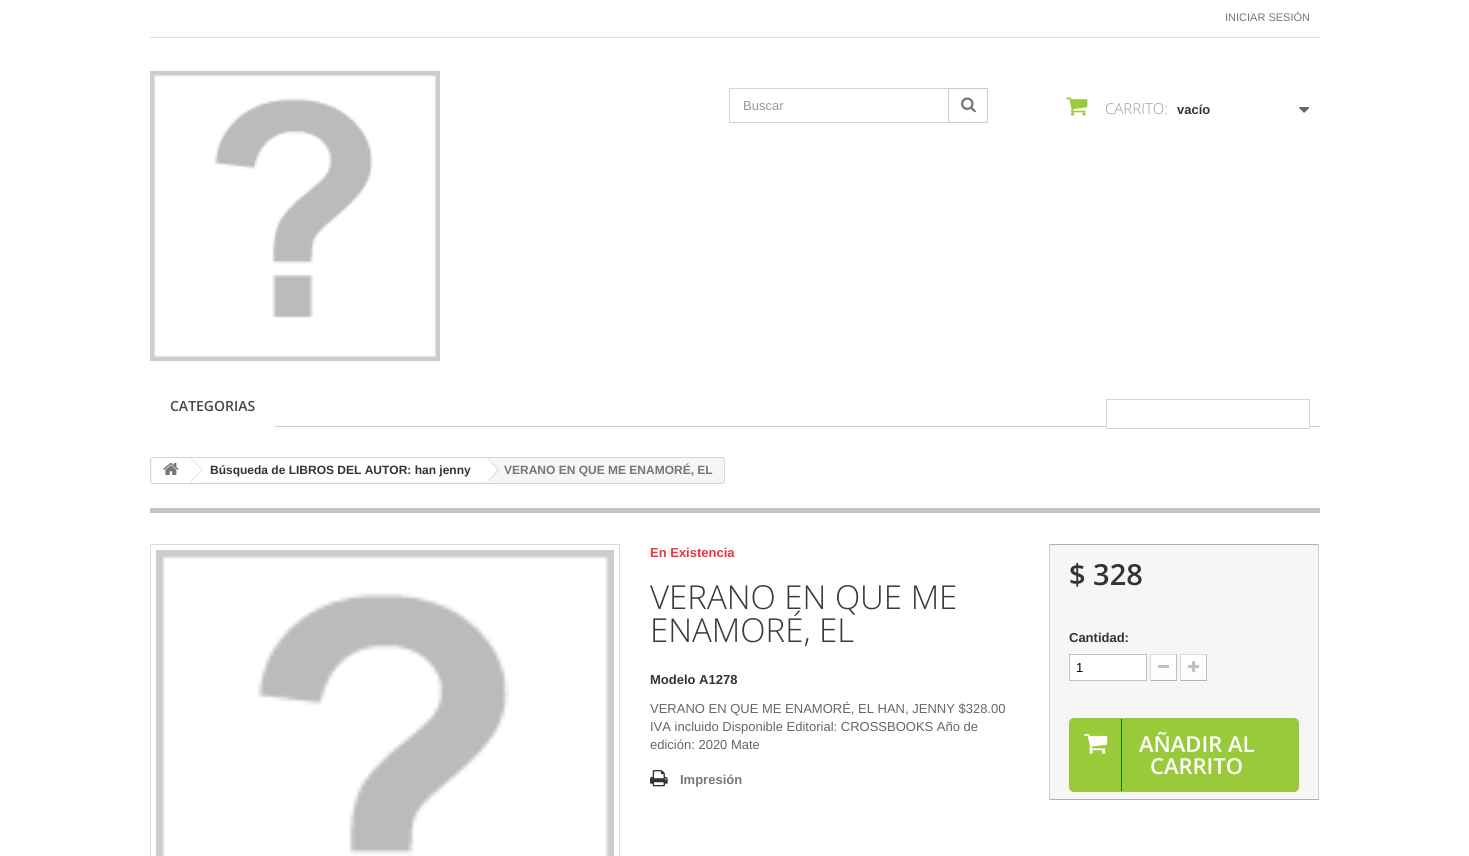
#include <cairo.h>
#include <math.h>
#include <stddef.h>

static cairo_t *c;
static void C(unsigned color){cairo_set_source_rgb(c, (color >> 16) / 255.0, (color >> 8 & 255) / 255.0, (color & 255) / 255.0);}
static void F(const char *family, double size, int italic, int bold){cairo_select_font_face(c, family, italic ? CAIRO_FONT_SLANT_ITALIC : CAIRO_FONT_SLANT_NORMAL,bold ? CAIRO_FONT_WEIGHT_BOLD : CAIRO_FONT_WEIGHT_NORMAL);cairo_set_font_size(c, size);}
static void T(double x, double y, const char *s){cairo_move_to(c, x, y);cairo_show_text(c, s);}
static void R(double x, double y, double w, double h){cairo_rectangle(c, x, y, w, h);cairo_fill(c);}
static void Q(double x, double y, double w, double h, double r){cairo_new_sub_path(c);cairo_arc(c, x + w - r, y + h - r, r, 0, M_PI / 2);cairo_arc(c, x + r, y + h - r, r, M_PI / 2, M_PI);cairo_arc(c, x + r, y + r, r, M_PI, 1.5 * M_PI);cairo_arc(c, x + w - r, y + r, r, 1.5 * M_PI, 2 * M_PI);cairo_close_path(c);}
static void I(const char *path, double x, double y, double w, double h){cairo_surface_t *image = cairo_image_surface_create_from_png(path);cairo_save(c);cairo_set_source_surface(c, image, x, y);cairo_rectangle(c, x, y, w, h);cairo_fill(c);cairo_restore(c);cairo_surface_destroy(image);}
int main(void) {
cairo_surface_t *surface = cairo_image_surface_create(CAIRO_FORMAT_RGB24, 1469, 856);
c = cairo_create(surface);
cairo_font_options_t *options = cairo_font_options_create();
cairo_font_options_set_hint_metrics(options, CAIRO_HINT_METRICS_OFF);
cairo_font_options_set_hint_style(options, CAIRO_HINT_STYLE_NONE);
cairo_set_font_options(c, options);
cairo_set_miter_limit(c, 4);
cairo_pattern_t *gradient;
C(0xffffff);
cairo_paint(c);
C(0xdddddd);
R(150,37,1170,1);
F("Liberation Sans",11,0,0);
C(0x777676);
T(1225,21,"INICIAR SESIÓN");
I("1.png",150,71,290,290);
cairo_rectangle(c,729.5,88.5,258,34);
C(0xd6d4d4);
cairo_set_line_width(c,1);
cairo_stroke(c);
F("Liberation Sans",13,0,0);
C(0x999999);
T(743,110,"Buscar");
cairo_rectangle(c,948.5,88.5,39,34);
C(0xcccccc);
cairo_stroke(c);
I("2.png",961,97,15,16);
I("3.png",1066,97,22,19);
F("Open Sans Light",15,0,0);
C(0x999999);
T(1105,114,"CARRITO:");
F("Liberation Sans",13,0,1);
C(0x333333);
T(1177,114,"vacío");
I("4.png",1299,107,11,6);
C(0xcccccc);
R(275,426,1045,1);
F("Open Sans SemiBold",14,0,0);
C(0x484848);
T(170,411,"CATEGORIAS");
C(0xffffff);
R(1107,426,202,1);
cairo_rectangle(c,1106.5,399.5,203,29);
C(0xd6d4d4);
cairo_stroke(c);
C(0xf6f6f6);
Q(150.5,457.5,574,26,2.5);
cairo_fill_preserve(c);
C(0xd6d4d4);
cairo_stroke(c);
C(0xffffff);
cairo_new_path(c);
cairo_move_to(c,155,458);
cairo_line_to(c,190,458);
cairo_line_to(c,190,483);
cairo_line_to(c,155,483);
cairo_curve_to(c,153.5,483,152,481.5,152,480);
cairo_line_to(c,152,461);
cairo_curve_to(c,152,459.5,153.5,458,155,458);
cairo_close_path(c);
cairo_fill(c);
I("5.png",163,462,16,13);
R(190,458,296,24);
C(0xd6d4d4);
cairo_new_path(c);
cairo_move_to(c,191,458);
cairo_line_to(c,202.5,469.5);
cairo_line_to(c,202,470);
cairo_line_to(c,190.5,458.5);
cairo_close_path(c);
cairo_move_to(c,202,470);
cairo_line_to(c,202.5,470.5);
cairo_line_to(c,191,482);
cairo_line_to(c,190.5,481.5);
cairo_close_path(c);
cairo_fill(c);
F("Liberation Sans",12,0,1);
C(0x333333);
T(210,474,"Búsqueda de LIBROS DEL AUTOR: han jenny");
C(0xffffff);
cairo_new_path(c);
cairo_move_to(c,488.5,458.5);
cairo_line_to(c,498,468.5);
cairo_curve_to(c,499,469.5,499,470.5,498,471.5);
cairo_line_to(c,488.5,481.5);
cairo_curve_to(c,487.5,482,486,482,485.5,481.5);
cairo_line_to(c,475.5,471.5);
cairo_curve_to(c,475,470.5,475,469.5,475.5,468.5);
cairo_line_to(c,485.5,458.5);
cairo_curve_to(c,486,458,487.5,458,488.5,458.5);
cairo_close_path(c);
cairo_fill(c);
C(0xd6d4d4);
cairo_new_path(c);
cairo_move_to(c,487.5,458);
cairo_line_to(c,499,469.5);
cairo_line_to(c,498,470);
cairo_line_to(c,487,458.5);
cairo_close_path(c);
cairo_move_to(c,498,470);
cairo_line_to(c,499,470.5);
cairo_line_to(c,487.5,482);
cairo_line_to(c,487,481.5);
cairo_close_path(c);
cairo_fill(c);
C(0x777676);
T(504,474,"VERANO EN QUE ME ENAMORÉ, EL");
C(0xc4c4c4);
R(150,508,1170,5);
cairo_rectangle(c,150.5,544.5,469,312);
C(0xdbdbdb);
cairo_stroke(c);
I("6.png",156,550,458,306);
F("Liberation Sans",13,0,1);
C(0xf13340);
T(650,557,"En Existencia");
F("Open Sans Light",33,0,0);
C(0x3a3939);
T(650,609,"VERANO EN QUE ME");
T(650,642,"ENAMORÉ, EL");
F("Liberation Sans",13,0,1);
C(0x333333);
T(650,684,"Modelo A1278");
F("Liberation Sans",13,0,0);
C(0x666666);
T(650,713,"VERANO EN QUE ME ENAMORÉ, EL HAN, JENNY $328.00");
T(650,731,"IVA incluido Disponible Editorial: CROSSBOOKS Año de");
T(650,749,"edición: 2020 Mate");
I("7.png",650,770,18,17);
F("Liberation Sans",13,0,1);
C(0x777676);
T(680,784,"Impresión");
C(0xf6f6f6);
R(1050,545,268,254);
C(0xb0afaf);
R(1049,544,270,1);
C(0xd2d0d0);
R(1318,544,1,256);
C(0xb0afaf);
R(1049,799,270,1);
C(0xd2d0d0);
R(1049,544,1,256);
F("Open Sans SemiBold",29,0,0);
C(0x333333);
T(1069,585,"$ 328");
F("Liberation Sans",13,0,1);
T(1069,642,"Cantidad:");
C(0xffffff);
cairo_rectangle(c,1069.5,654.5,77,26);
cairo_fill_preserve(c);
C(0xbdc2c9);
cairo_stroke(c);
F("Liberation Sans",13,0,0);
C(0x000000);
T(1076,672,"1");
C(0xdedcdc);
R(1150,654,27,1);
C(0xc1bfbf);
R(1176,654,1,27);
C(0xb5b4b4);
R(1150,680,27,1);
C(0xdad8d8);
R(1150,654,1,27);
gradient = cairo_pattern_create_linear(1164,656,1164,679);
cairo_pattern_add_color_stop_rgba(gradient,0,1,1,1,1);
cairo_pattern_add_color_stop_rgba(gradient,1,0.984,0.984,0.984,1);
cairo_set_source(c,gradient);
cairo_pattern_destroy(gradient);
R(1152,656,23,23);
cairo_rectangle(c,1151.5,655.5,24,24);
C(0xffffff);
cairo_stroke(c);
C(0xc0c0c0);
R(1158,665,11,3);
C(0xdedcdc);
R(1180,654,27,1);
C(0xc1bfbf);
R(1206,654,1,27);
C(0xb5b4b4);
R(1180,680,27,1);
C(0xdad8d8);
R(1180,654,1,27);
gradient = cairo_pattern_create_linear(1194,656,1194,679);
cairo_pattern_add_color_stop_rgba(gradient,0,1,1,1,1);
cairo_pattern_add_color_stop_rgba(gradient,1,0.984,0.984,0.984,1);
cairo_set_source(c,gradient);
cairo_pattern_destroy(gradient);
R(1182,656,23,23);
cairo_rectangle(c,1181.5,655.5,24,24);
C(0xffffff);
cairo_stroke(c);
I("8.png",1188,661,11,11);
C(0x99ca3a);
Q(1069.5,718.5,229,73,4.5);
cairo_fill_preserve(c);
cairo_stroke(c);
I("9.png",1084,734,24,20);
C(0x008000);
R(1121,719,1,72);
F("Open Sans SemiBold",22,0,0);
C(0xffffff);
T(1139,752,"AÑADIR AL");
T(1150,774,"CARRITO");
cairo_surface_write_to_png(surface, "o.png");
cairo_font_options_destroy(options);
cairo_destroy(c);
cairo_surface_destroy(surface);
return 0;
}
